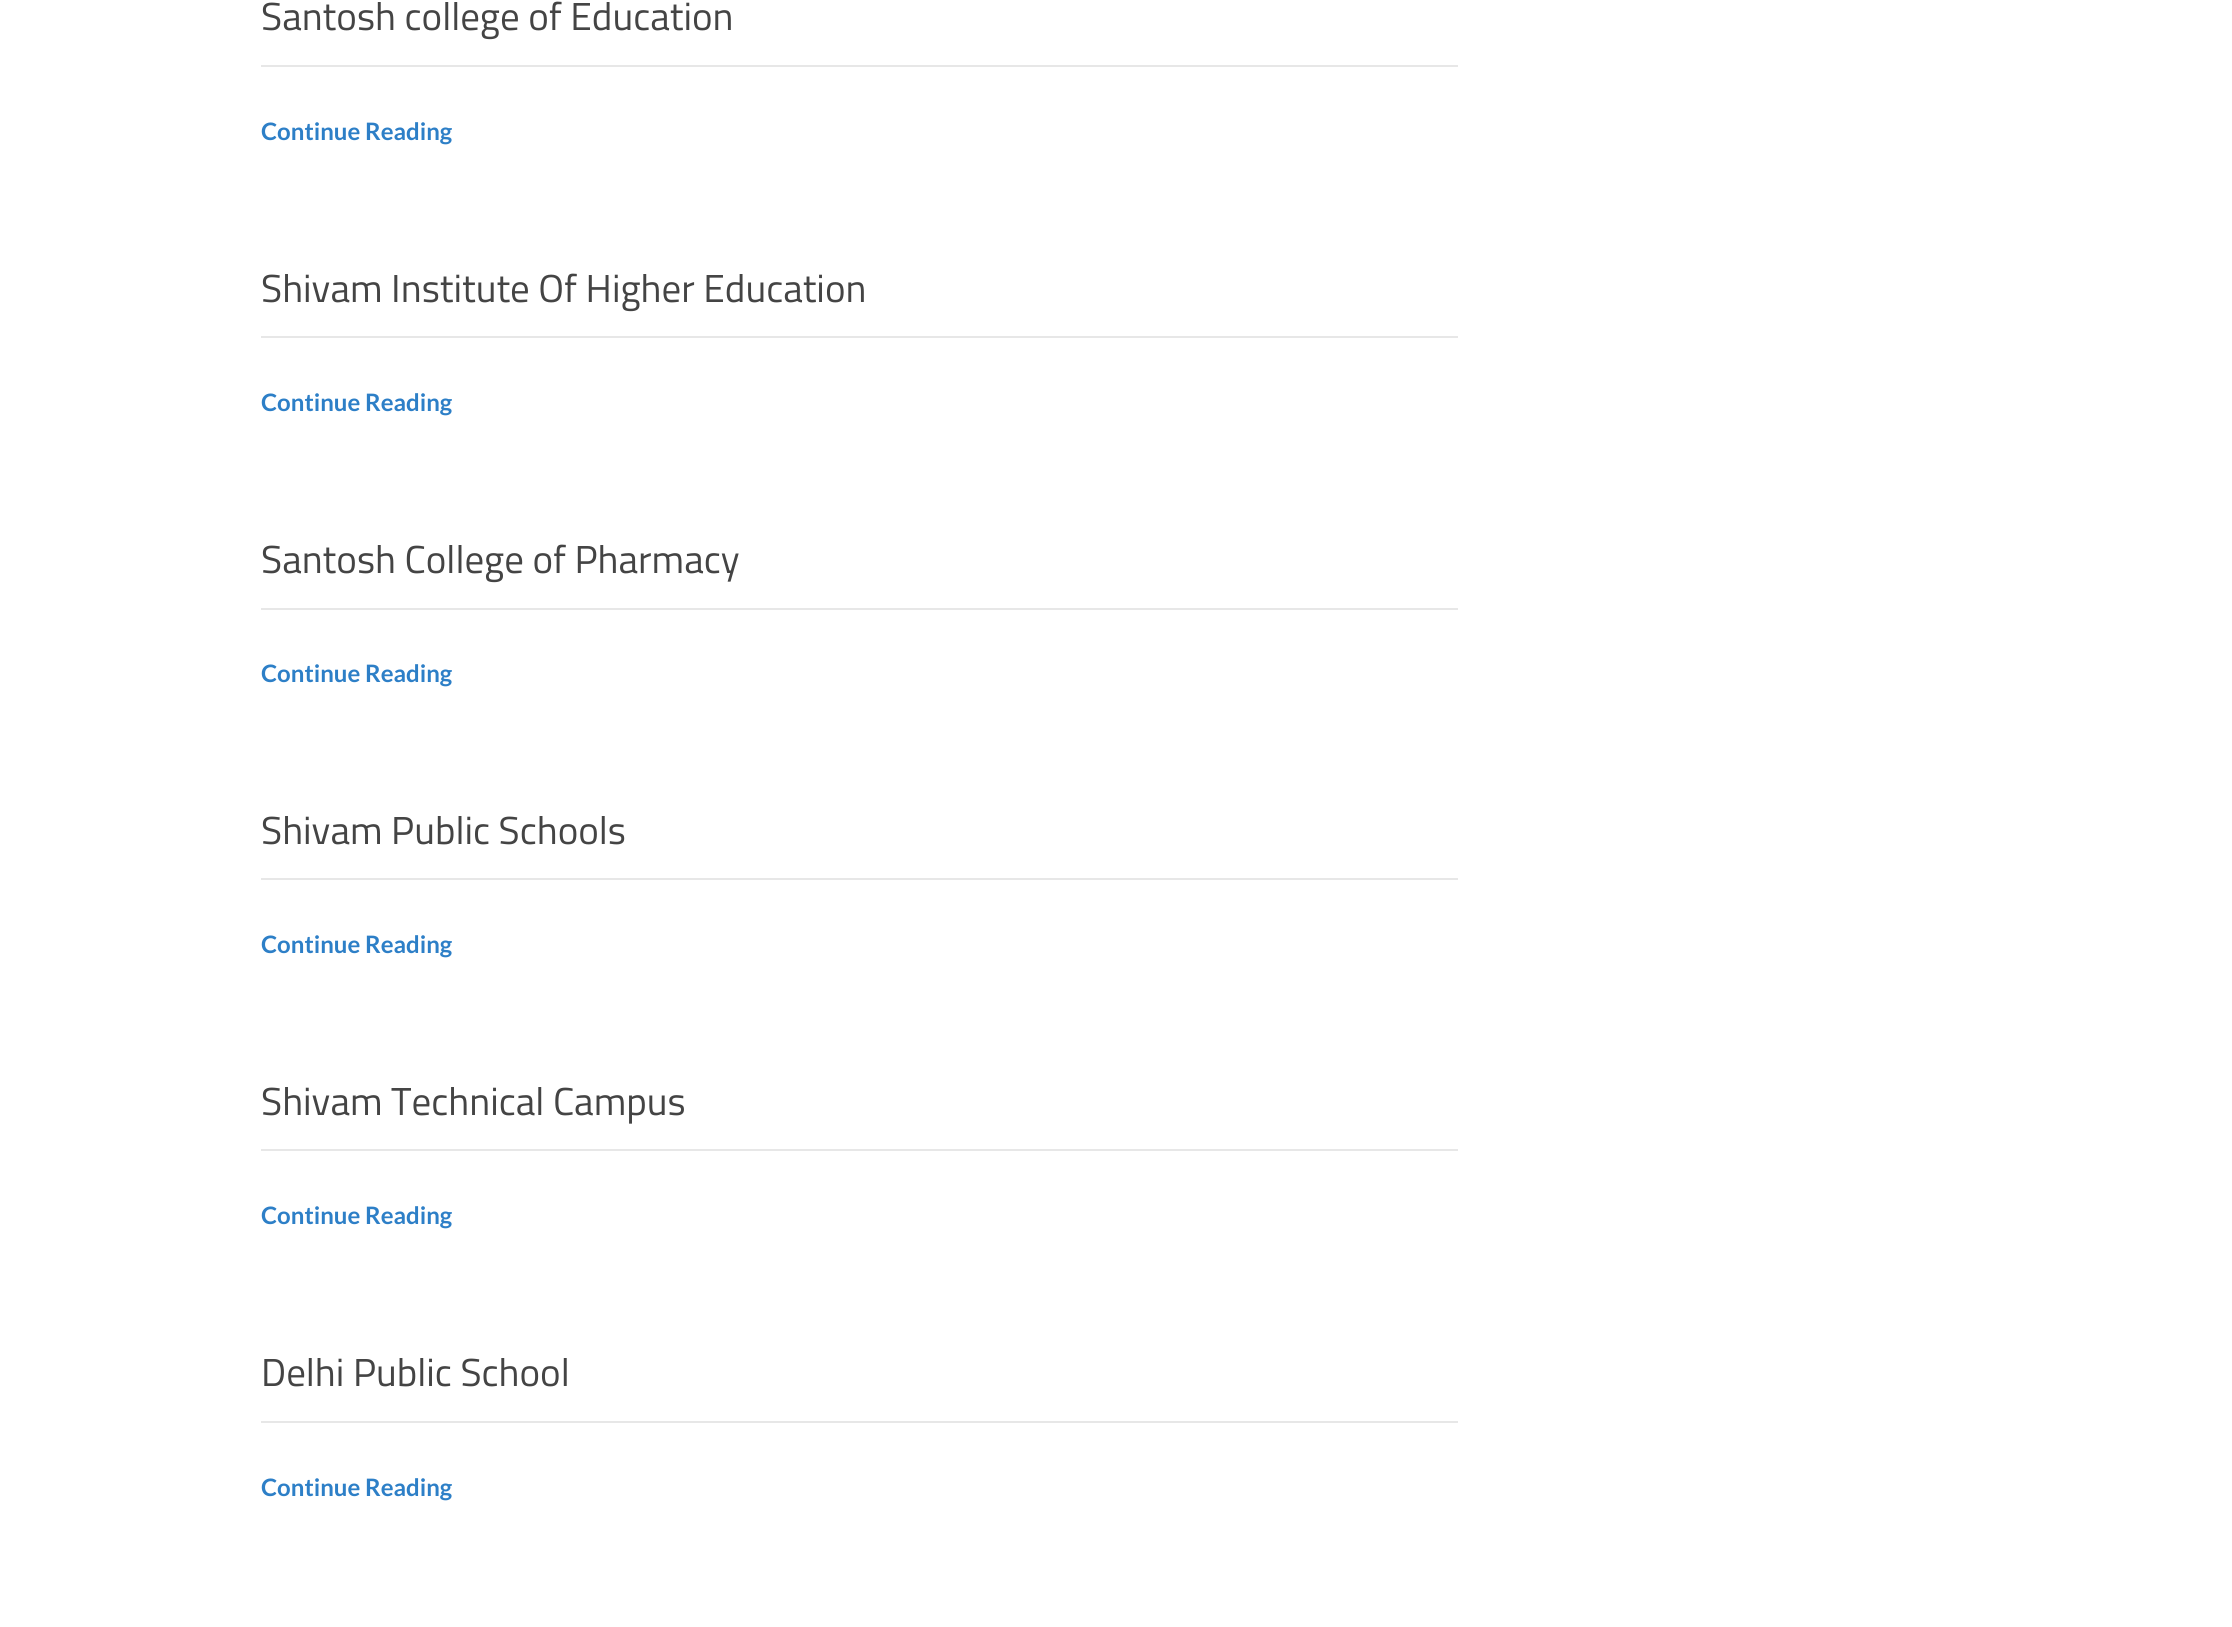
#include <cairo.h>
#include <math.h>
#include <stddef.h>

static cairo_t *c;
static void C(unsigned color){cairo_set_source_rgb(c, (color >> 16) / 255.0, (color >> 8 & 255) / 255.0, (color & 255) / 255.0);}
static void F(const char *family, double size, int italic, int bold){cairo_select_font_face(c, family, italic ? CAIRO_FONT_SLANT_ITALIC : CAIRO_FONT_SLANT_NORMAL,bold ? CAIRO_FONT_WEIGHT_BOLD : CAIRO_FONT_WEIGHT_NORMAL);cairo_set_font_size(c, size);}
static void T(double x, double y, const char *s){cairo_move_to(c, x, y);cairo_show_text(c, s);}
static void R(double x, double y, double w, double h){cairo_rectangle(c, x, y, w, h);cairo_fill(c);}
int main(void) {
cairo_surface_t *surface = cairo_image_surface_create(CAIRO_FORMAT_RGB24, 2232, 1627);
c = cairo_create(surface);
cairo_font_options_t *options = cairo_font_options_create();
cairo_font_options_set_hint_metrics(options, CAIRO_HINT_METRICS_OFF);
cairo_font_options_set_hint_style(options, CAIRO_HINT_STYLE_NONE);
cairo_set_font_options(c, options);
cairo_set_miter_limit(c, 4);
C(0xffffff);
cairo_paint(c);
F("Titillium Web",39,0,0);
C(0x444444);
T(261,30,"Santosh college of Education");
C(0xe7e7e7);
R(261,65,1197,2);
F("Lato",24,0,1);
C(0x2d7fc7);
T(261,140,"Continue Reading");
F("Titillium Web",39,0,0);
C(0x444444);
T(261,302,"Shivam Institute Of Higher Education");
C(0xe7e7e7);
R(261,336,1197,2);
F("Lato",24,0,1);
C(0x2d7fc7);
T(261,411,"Continue Reading");
F("Titillium Web",39,0,0);
C(0x444444);
T(261,573,"Santosh College of Pharmacy");
C(0xe7e7e7);
R(261,608,1197,2);
F("Lato",24,0,1);
C(0x2d7fc7);
T(261,682,"Continue Reading");
F("Titillium Web",39,0,0);
C(0x444444);
T(261,844,"Shivam Public Schools");
C(0xe7e7e7);
R(261,878,1197,2);
F("Lato",24,0,1);
C(0x2d7fc7);
T(261,953,"Continue Reading");
F("Titillium Web",39,0,0);
C(0x444444);
T(261,1115,"Shivam Technical Campus");
C(0xe7e7e7);
R(261,1149,1197,2);
F("Lato",24,0,1);
C(0x2d7fc7);
T(261,1224,"Continue Reading");
F("Titillium Web",39,0,0);
C(0x444444);
T(261,1386,"Delhi Public School");
C(0xe7e7e7);
R(261,1421,1197,2);
F("Lato",24,0,1);
C(0x2d7fc7);
T(261,1496,"Continue Reading");
cairo_surface_write_to_png(surface, "o.png");
cairo_font_options_destroy(options);
cairo_destroy(c);
cairo_surface_destroy(surface);
return 0;
}
